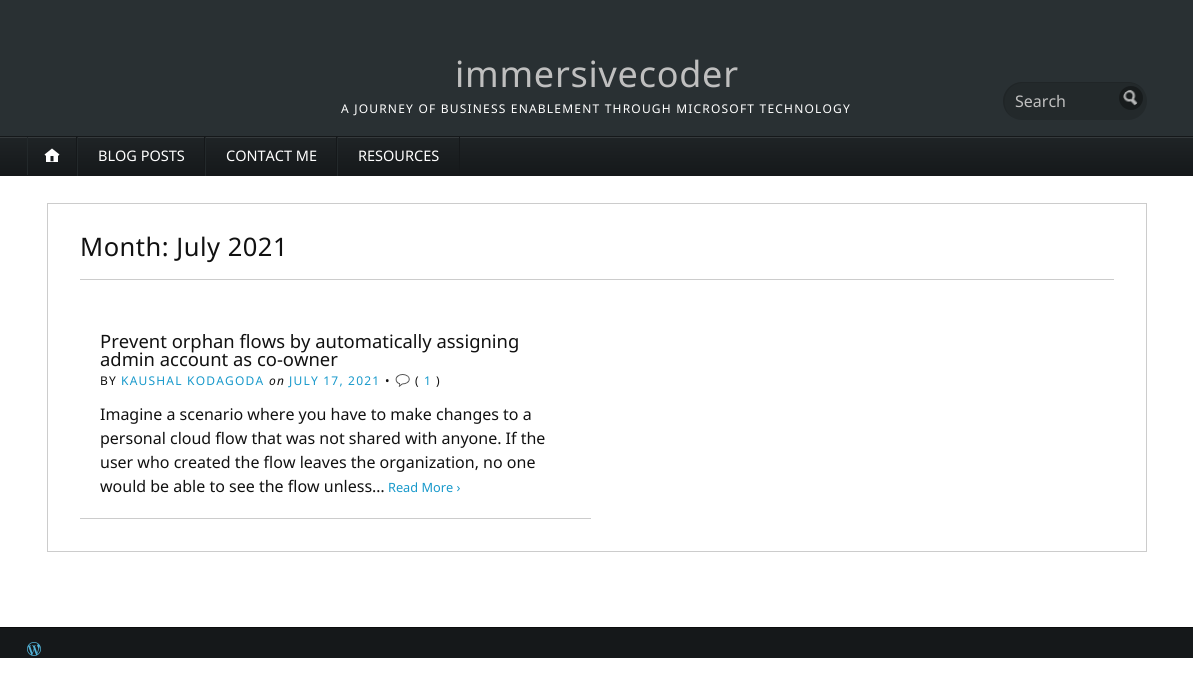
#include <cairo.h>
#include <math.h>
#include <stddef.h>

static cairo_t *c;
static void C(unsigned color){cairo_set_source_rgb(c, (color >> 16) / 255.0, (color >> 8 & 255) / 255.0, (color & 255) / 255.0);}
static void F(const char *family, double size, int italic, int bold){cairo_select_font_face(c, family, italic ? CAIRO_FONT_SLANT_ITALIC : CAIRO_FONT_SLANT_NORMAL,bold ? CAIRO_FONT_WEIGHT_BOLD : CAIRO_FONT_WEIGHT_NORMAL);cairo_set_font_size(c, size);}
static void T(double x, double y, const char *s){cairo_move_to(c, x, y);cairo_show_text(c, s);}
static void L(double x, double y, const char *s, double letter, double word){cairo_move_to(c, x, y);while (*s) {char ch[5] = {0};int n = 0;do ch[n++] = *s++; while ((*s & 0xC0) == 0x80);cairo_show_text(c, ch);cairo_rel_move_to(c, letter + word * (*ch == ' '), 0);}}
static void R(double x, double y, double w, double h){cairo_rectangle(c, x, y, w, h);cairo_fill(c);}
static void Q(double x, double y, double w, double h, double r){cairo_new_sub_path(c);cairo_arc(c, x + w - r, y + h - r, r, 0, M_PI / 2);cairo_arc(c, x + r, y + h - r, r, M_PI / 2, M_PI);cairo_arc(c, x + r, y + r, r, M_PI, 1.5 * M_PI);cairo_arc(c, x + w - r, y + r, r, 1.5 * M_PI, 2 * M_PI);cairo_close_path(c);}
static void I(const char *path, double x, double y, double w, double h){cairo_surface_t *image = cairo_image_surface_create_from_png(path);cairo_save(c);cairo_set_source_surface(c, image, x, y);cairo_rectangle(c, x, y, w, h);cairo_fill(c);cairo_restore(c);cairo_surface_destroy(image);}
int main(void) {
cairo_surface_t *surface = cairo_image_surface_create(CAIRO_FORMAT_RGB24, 1193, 677);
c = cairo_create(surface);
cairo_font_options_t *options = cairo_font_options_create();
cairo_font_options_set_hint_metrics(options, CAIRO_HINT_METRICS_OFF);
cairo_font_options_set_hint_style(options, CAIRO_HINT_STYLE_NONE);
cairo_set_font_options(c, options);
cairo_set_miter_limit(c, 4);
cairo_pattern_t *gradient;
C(0xffffff);
cairo_paint(c);
C(0x293033);
R(0,0,1193,136);
F("Noto Sans",36,0,0);
C(0xbfbfbf);
L(455,87,"immersivecoder",.75,0);
F("Noto Sans",12,0,0);
C(0xffffff);
L(341,113,"A JOURNEY OF BUSINESS ENABLEMENT THROUGH MICROSOFT TECHNOLOGY",1.2,0);
C(0x23292b);
Q(1003,82,144,38,19);
cairo_fill(c);
cairo_set_source_rgba(c,0,0,0,0.1);
cairo_new_path(c);
cairo_move_to(c,1023,83);
cairo_line_to(c,1129,83);
cairo_curve_to(c,1135,83,1140,86,1144,91);
cairo_curve_to(c,1141,85,1135,82,1128,82);
cairo_line_to(c,1022,82);
cairo_curve_to(c,1012,82,1003,91,1003,101);
cairo_curve_to(c,1003,108,1006,114,1012,117);
cairo_curve_to(c,998,106,1005,83,1023,83);
cairo_close_path(c);
cairo_fill(c);
F("Noto Sans",16,0,0);
C(0xbfbfbf);
T(1015,107,"Search");
C(0x171b1c);
cairo_new_path(c);
cairo_arc(c,1131,98,12,0,2 * M_PI);
cairo_fill(c);
I("1.png",1123,90,15,16);
gradient = cairo_pattern_create_linear(597,98,597,137);
cairo_pattern_add_color_stop_rgba(gradient,0,0.122,0.141,0.149,1);
cairo_pattern_add_color_stop_rgba(gradient,1,0.082,0.094,0.102,1);
cairo_set_source(c,gradient);
cairo_pattern_destroy(gradient);
R(0,136,1193,1);
gradient = cairo_pattern_create_linear(597,137,597,176);
cairo_pattern_add_color_stop_rgba(gradient,0,0.122,0.141,0.149,1);
cairo_pattern_add_color_stop_rgba(gradient,1,0.082,0.094,0.102,1);
cairo_set_source(c,gradient);
cairo_pattern_destroy(gradient);
R(0,138,1193,38);
cairo_save(c);
cairo_rectangle(c,0,137,1193,39);
cairo_clip(c);
C(0x353a3c);
cairo_set_fill_rule(c,CAIRO_FILL_RULE_EVEN_ODD);
cairo_new_path(c);
cairo_move_to(c,-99,38);
cairo_line_to(c,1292,38);
cairo_line_to(c,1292,275);
cairo_line_to(c,-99,275);
cairo_close_path(c);
cairo_move_to(c,0,138);
cairo_line_to(c,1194,138);
cairo_line_to(c,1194,172);
cairo_curve_to(c,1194,173,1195,179,1193,179);
cairo_line_to(c,0,179);
cairo_line_to(c,-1,178);
cairo_line_to(c,-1,138);
cairo_close_path(c);
cairo_fill(c);
cairo_restore(c);
C(0x15181a);
R(76,137,1,38);
C(0x23292b);
R(27,137,1,38);
I("2.png",44,148,16,14);
C(0x15181a);
R(204,137,1,39);
C(0x23292b);
R(77,137,1,39);
F("Noto Sans",14.5,0,0);
C(0xffffff);
T(98,161,"BLOG POSTS");
C(0x15181a);
R(336,137,1,39);
C(0x23292b);
R(205,137,1,39);
C(0xffffff);
T(226,161,"CONTACT ME");
C(0x15181a);
R(459,137,1,39);
C(0x23292b);
R(337,137,1,39);
C(0xffffff);
T(358,161,"RESOURCES");
cairo_rectangle(c,47.5,203.5,1099,348);
C(0xcccccc);
cairo_set_line_width(c,1);
cairo_stroke(c);
R(80,279,1034,1);
F("Noto Sans",25.5,0,0);
C(0x111111);
L(80,256,"Month: July 2021",.5,0);
C(0xcccccc);
R(80,518,511,1);
F("Noto Sans",18.4,0,0);
C(0x111111);
T(100,348,"Prevent orphan flows by automatically assigning");
T(100,366,"admin account as co-owner");
F("Noto Sans",12,0,0);
L(100,385,"BY",1.2,0);
C(0x1899cb);
L(121,385,"KAUSHAL KODAGODA",1.2,0);
F("Noto Sans",12,1,0);
C(0x111111);
L(269,385,"on",1.2,0);
F("Noto Sans",12,0,0);
C(0x1899cb);
L(289,385,"JULY 17, 2021",1.2,0);
C(0x111111);
L(385,385,"•",1.2,0);
I("3.png",395,374,15,13);
L(415,385,"(",1.2,0);
C(0x1899cb);
L(424,385,"1",1.2,0);
C(0x111111);
L(436,385,")",1.2,0);
F("Noto Sans",16,0,0);
T(100,420,"Imagine a scenario where you have to make changes to a");
T(100,444,"personal cloud flow that was not shared with anyone. If the");
T(100,468,"user who created the flow leaves the organization, no one");
T(100,492,"would be able to see the flow unless…");
F("Noto Sans",12.75,0,0);
C(0x1899cb);
T(388,492,"Read More ›");
C(0x15181a);
R(0,628,1193,30);
C(0x0a0c0d);
R(0,627,1193,1);
I("4.png",27,642,14,14);
cairo_surface_write_to_png(surface, "o.png");
cairo_font_options_destroy(options);
cairo_destroy(c);
cairo_surface_destroy(surface);
return 0;
}
